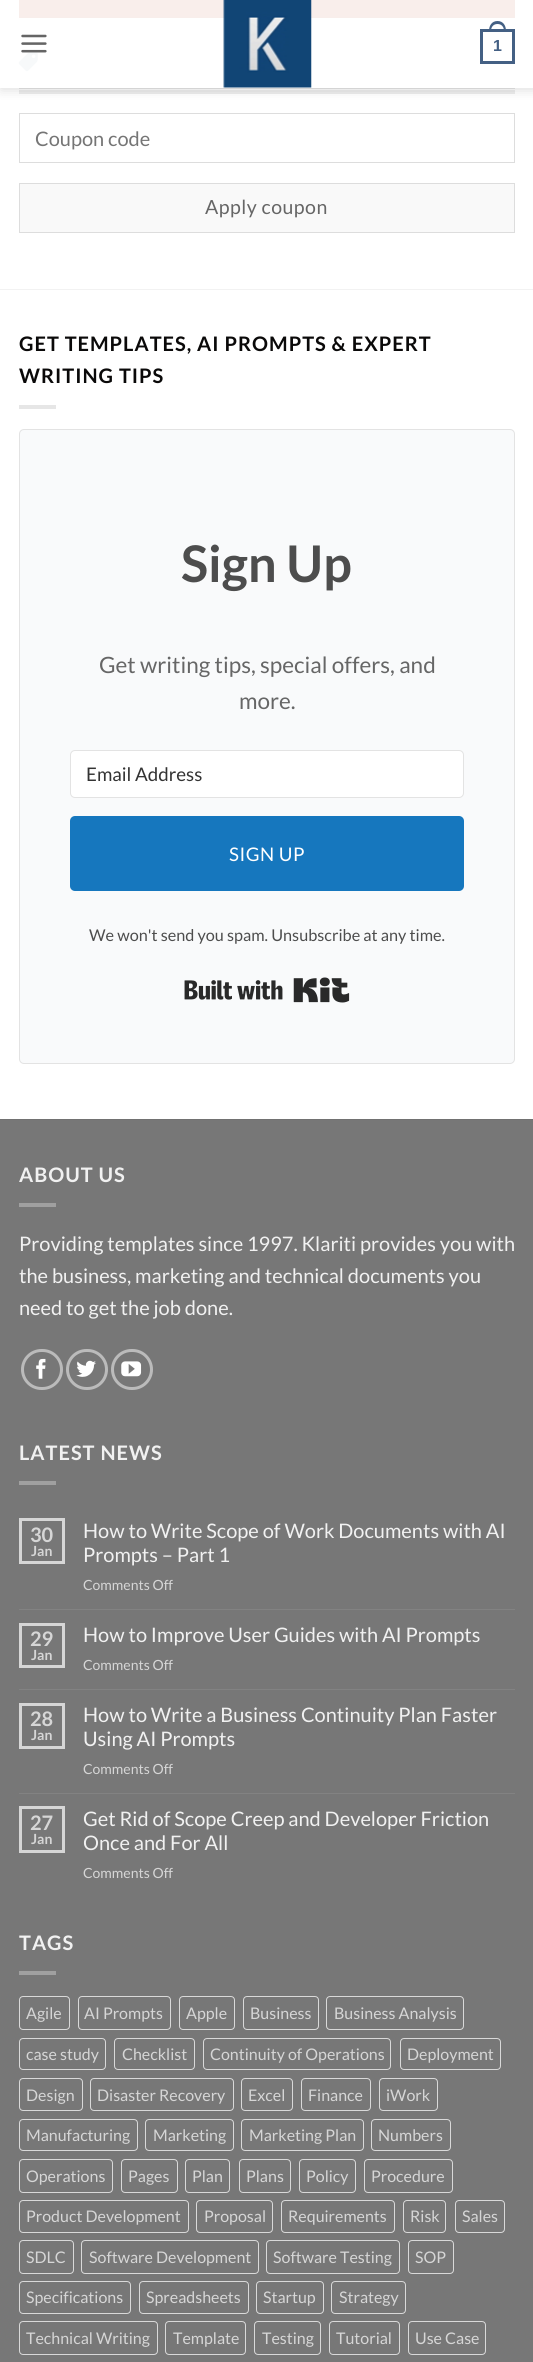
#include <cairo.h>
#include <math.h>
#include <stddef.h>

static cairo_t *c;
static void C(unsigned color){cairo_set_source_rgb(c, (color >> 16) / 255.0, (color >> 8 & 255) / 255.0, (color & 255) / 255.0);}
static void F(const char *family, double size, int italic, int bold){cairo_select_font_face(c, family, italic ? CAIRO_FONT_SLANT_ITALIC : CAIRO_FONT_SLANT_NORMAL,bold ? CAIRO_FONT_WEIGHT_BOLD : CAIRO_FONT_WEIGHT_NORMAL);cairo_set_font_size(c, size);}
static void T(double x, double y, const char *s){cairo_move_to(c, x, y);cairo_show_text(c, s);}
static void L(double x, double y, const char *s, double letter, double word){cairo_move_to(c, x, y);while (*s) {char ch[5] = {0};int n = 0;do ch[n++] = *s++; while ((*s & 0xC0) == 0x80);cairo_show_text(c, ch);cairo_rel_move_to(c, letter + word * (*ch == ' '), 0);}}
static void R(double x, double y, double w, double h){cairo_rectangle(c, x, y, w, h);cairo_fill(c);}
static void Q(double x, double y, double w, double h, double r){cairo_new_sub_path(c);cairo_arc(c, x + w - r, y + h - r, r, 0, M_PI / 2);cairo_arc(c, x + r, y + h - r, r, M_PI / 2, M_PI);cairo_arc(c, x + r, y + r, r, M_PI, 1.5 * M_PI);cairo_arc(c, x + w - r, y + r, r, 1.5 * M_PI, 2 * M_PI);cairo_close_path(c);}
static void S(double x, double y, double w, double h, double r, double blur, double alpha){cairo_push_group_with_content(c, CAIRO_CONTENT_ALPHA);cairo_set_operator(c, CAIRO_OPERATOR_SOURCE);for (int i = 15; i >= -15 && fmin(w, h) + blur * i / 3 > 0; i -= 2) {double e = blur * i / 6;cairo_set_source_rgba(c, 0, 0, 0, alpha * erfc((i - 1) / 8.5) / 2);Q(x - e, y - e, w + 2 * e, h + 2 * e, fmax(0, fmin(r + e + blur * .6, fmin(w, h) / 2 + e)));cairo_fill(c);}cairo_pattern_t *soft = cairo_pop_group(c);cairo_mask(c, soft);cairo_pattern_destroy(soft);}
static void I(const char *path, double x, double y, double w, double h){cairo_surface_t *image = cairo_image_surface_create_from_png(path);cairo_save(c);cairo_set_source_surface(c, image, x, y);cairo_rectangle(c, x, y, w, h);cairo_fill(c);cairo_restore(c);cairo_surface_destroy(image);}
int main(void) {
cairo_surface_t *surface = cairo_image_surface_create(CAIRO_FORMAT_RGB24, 533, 2362);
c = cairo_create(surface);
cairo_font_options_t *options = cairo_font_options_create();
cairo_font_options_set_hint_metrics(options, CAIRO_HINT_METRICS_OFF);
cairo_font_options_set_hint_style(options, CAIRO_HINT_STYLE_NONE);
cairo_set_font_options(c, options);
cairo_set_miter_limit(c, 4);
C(0xffffff);
cairo_paint(c);
C(0xc05530);
cairo_rectangle(c,19.5,-.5,495,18);
cairo_fill_preserve(c);
C(0xb6512e);
cairo_set_line_width(c,1);
cairo_stroke(c);
C(0xececec);
R(19,90,496,4);
I("3.png",18,52,20,20);
cairo_save(c);
cairo_set_fill_rule(c,CAIRO_FILL_RULE_EVEN_ODD);
cairo_new_path(c);
cairo_move_to(c,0,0);
cairo_line_to(c,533,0);
cairo_line_to(c,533,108);
cairo_line_to(c,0,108);
cairo_close_path(c);
cairo_move_to(c,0,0);
cairo_line_to(c,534,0);
cairo_line_to(c,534,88);
cairo_line_to(c,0,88);
cairo_close_path(c);
cairo_clip(c);
C(0x000000);
S(1,1,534,88,0,6,.15);
cairo_restore(c);
cairo_set_source_rgba(c,1,1,1,0.9);
R(0,0,533,88);
I("1.png",21,34,26,19);
I("2.png",223,0,89,88);
cairo_rectangle(c,481.5,30.5,32,32);
C(0x446084);
cairo_set_line_width(c,3);
cairo_stroke(c);
cairo_set_fill_rule(c,CAIRO_FILL_RULE_EVEN_ODD);
cairo_new_path(c);
cairo_move_to(c,497.5,21);
cairo_curve_to(c,503.5,21,506,26,506,31);
cairo_line_to(c,489,31);
cairo_curve_to(c,489,26,491.5,21,497.5,21);
cairo_close_path(c);
cairo_move_to(c,497.5,24);
cairo_curve_to(c,502,24,504,27.5,504,31);
cairo_line_to(c,491,31);
cairo_curve_to(c,491,27.5,493,24,497.5,24);
cairo_close_path(c);
cairo_fill(c);
F("Liberation Sans",16,0,1);
T(493,51,"1");
C(0xd4d4d4);
R(19,88,496,1);
cairo_rectangle(c,19.5,113.5,495,49);
C(0xdddddd);
cairo_set_line_width(c,1);
cairo_stroke(c);
F("Lato",20,0,0);
C(0x757575);
T(35,146,"Coupon code");
C(0xf9f9f9);
cairo_rectangle(c,19.5,183.5,495,49);
cairo_fill_preserve(c);
C(0xdddddd);
cairo_stroke(c);
F("Lato",19.5,0,0);
C(0x666666);
L(205,214,"Apply coupon",.5,0);
C(0xf2f2f2);
R(0,289,533,1);
F("Lato",20,0,1);
C(0x0a0909);
L(19,351,"GET TEMPLATES, AI PROMPTS & EXPERT",1,0);
L(19,383,"WRITING TIPS",1,0);
C(0xe6e6e6);
R(19,405,37,4);
C(0xf9fafb);
Q(19.5,429.5,495,634,4.5);
cairo_fill_preserve(c);
C(0xe3e3e3);
cairo_stroke(c);
F("Lato",50.5,0,1);
C(0x4d4d4d);
T(181,582,"Sign Up");
F("Lato",22.5,0,0);
C(0x666666);
T(99,673,"Get writing tips, special offers, and");
T(239,709,"more.");
C(0xffffff);
Q(70.5,750.5,393,47,4.5);
cairo_fill_preserve(c);
C(0xe3e3e3);
cairo_stroke(c);
F("Lato",18.75,0,0);
C(0x333333);
T(86,781,"Email Address");
C(0x1677be);
Q(70,816,394,75,5);
cairo_fill(c);
C(0xffffff);
L(229,861,"SIGN UP",.5,0);
F("Lato",16.25,0,0);
C(0x4d4d4d);
T(89,941,"We won't send you spam. Unsubscribe at any time.");
I("4.png",184,977,166,26);
C(0x777777);
R(0,1120,533,1242);
C(0x717171);
R(0,1119,533,1);
F("Lato",20,0,1);
C(0xf1f1f1);
L(19,1182,"ABOUT US",1,0);
C(0xa0a0a0);
R(19,1203,37,4);
F("Lato",20,0,0);
C(0xf1f1f1);
T(19,1251,"Providing templates since 1997. Klariti provides you with");
T(19,1283,"the business, marketing and technical documents you");
T(19,1315,"need to get the job done.");
Q(22.5,1350.5,39,38,19);
C(0xbbbbbb);
cairo_set_line_width(c,3);
cairo_stroke(c);
I("5.png",36,1358,10,21);
Q(67.5,1350.5,39,38,19);
cairo_stroke(c);
I("6.png",76,1360,20,17);
Q(112.5,1350.5,39,38,19);
cairo_stroke(c);
I("7.png",121,1361,21,16);
F("Lato",20,0,1);
C(0xf1f1f1);
L(19,1460,"LATEST NEWS",1,0);
C(0xa0a0a0);
R(19,1481,37,4);
cairo_rectangle(c,20.5,1519.5,43,43);
C(0xd6d6d6);
cairo_stroke(c);
T(30,1542,"30");
F("Lato",14,0,1);
T(31,1556,"Jan");
F("Lato",20,0,0);
C(0xf1f1f1);
T(83,1538,"How to Write Scope of Work Documents with AI");
T(83,1562,"Prompts – Part 1");
F("Lato",14,0,0);
C(0xd6d6d6);
T(83,1590,"Comments Off");
C(0x828282);
R(19,1609,496,1);
cairo_rectangle(c,20.5,1624.5,43,42);
C(0xd6d6d6);
cairo_stroke(c);
F("Lato",20,0,1);
T(30,1646,"29");
F("Lato",14,0,1);
T(31,1660,"Jan");
F("Lato",20,0,0);
C(0xf1f1f1);
T(83,1642,"How to Improve User Guides with AI Prompts");
F("Lato",14,0,0);
C(0xd6d6d6);
T(83,1670,"Comments Off");
C(0x828282);
R(19,1689,496,1);
cairo_rectangle(c,20.5,1704.5,43,43);
C(0xd6d6d6);
cairo_stroke(c);
F("Lato",20,0,1);
T(30,1726,"28");
F("Lato",14,0,1);
T(31,1740,"Jan");
F("Lato",20,0,0);
C(0xf1f1f1);
T(83,1722,"How to Write a Business Continuity Plan Faster");
T(83,1746,"Using AI Prompts");
F("Lato",14,0,0);
C(0xd6d6d6);
T(83,1774,"Comments Off");
C(0x828282);
R(19,1793,496,1);
cairo_rectangle(c,20.5,1807.5,43,44);
C(0xd6d6d6);
cairo_stroke(c);
F("Lato",20,0,1);
T(30,1830,"27");
F("Lato",14,0,1);
T(31,1844,"Jan");
F("Lato",20,0,0);
C(0xf1f1f1);
T(83,1826,"Get Rid of Scope Creep and Developer Friction");
T(83,1850,"Once and For All");
F("Lato",14,0,0);
C(0xd6d6d6);
T(83,1878,"Comments Off");
F("Lato",20,0,1);
C(0xf1f1f1);
L(19,1950,"TAGS",1,0);
C(0xa0a0a0);
R(19,1971,37,4);
Q(19.5,1996.5,50,33,3.5);
C(0xd9d9d9);
cairo_set_line_width(c,1);
cairo_stroke(c);
F("Lato",16,0,0);
C(0xd6d6d6);
T(26,2019,"Agile");
Q(78.5,1996.5,92,33,3.5);
C(0xd9d9d9);
cairo_stroke(c);
C(0xd6d6d6);
T(84,2019,"AI Prompts");
Q(179.5,1996.5,55,33,3.5);
C(0xd9d9d9);
cairo_stroke(c);
C(0xd6d6d6);
T(186,2019,"Apple");
Q(243.5,1996.5,75,33,3.5);
C(0xd9d9d9);
cairo_stroke(c);
C(0xd6d6d6);
T(250,2019,"Business");
Q(326.5,1996.5,137,33,3.5);
C(0xd9d9d9);
cairo_stroke(c);
C(0xd6d6d6);
T(334,2019,"Business Analysis");
Q(19.5,2038.5,86,31,3.5);
C(0xd9d9d9);
cairo_stroke(c);
C(0xd6d6d6);
T(26,2060,"case study");
Q(114.5,2038.5,80,31,3.5);
C(0xd9d9d9);
cairo_stroke(c);
C(0xd6d6d6);
T(122,2060,"Checklist");
Q(203.5,2038.5,187,31,3.5);
C(0xd9d9d9);
cairo_stroke(c);
C(0xd6d6d6);
T(210,2060,"Continuity of Operations");
Q(400.5,2038.5,100,31,3.5);
C(0xd9d9d9);
cairo_stroke(c);
C(0xd6d6d6);
T(407,2060,"Deployment");
Q(19.5,2078.5,63,32,3.5);
C(0xd9d9d9);
cairo_stroke(c);
C(0xd6d6d6);
T(26,2101,"Design");
Q(90.5,2078.5,143,32,3.5);
C(0xd9d9d9);
cairo_stroke(c);
C(0xd6d6d6);
T(97,2101,"Disaster Recovery");
Q(241.5,2078.5,51,32,3.5);
C(0xd9d9d9);
cairo_stroke(c);
C(0xd6d6d6);
T(248,2101,"Excel");
Q(301.5,2078.5,69,32,3.5);
C(0xd9d9d9);
cairo_stroke(c);
C(0xd6d6d6);
T(308,2101,"Finance");
Q(379.5,2078.5,58,32,3.5);
C(0xd9d9d9);
cairo_stroke(c);
C(0xd6d6d6);
T(386,2101,"iWork");
Q(19.5,2119.5,118,31,3.5);
C(0xd9d9d9);
cairo_stroke(c);
C(0xd6d6d6);
T(26,2141,"Manufacturing");
Q(145.5,2119.5,88,31,3.5);
C(0xd9d9d9);
cairo_stroke(c);
C(0xd6d6d6);
T(153,2141,"Marketing");
Q(241.5,2119.5,122,31,3.5);
C(0xd9d9d9);
cairo_stroke(c);
C(0xd6d6d6);
T(249,2141,"Marketing Plan");
Q(371.5,2119.5,79,31,3.5);
C(0xd9d9d9);
cairo_stroke(c);
C(0xd6d6d6);
T(378,2141,"Numbers");
Q(19.5,2159.5,93,33,3.5);
C(0xd9d9d9);
cairo_stroke(c);
C(0xd6d6d6);
T(26,2182,"Operations");
Q(121.5,2159.5,56,33,3.5);
C(0xd9d9d9);
cairo_stroke(c);
C(0xd6d6d6);
T(128,2182,"Pages");
Q(185.5,2159.5,44,33,3.5);
C(0xd9d9d9);
cairo_stroke(c);
C(0xd6d6d6);
T(192,2182,"Plan");
Q(239.5,2159.5,51,33,3.5);
C(0xd9d9d9);
cairo_stroke(c);
C(0xd6d6d6);
T(246,2182,"Plans");
Q(299.5,2159.5,56,33,3.5);
C(0xd9d9d9);
cairo_stroke(c);
C(0xd6d6d6);
T(306,2182,"Policy");
Q(364.5,2159.5,88,33,3.5);
C(0xd9d9d9);
cairo_stroke(c);
C(0xd6d6d6);
T(371,2182,"Procedure");
Q(19.5,2200.5,169,32,3.5);
C(0xd9d9d9);
cairo_stroke(c);
C(0xd6d6d6);
T(26,2222,"Product Development");
Q(196.5,2200.5,76,32,3.5);
C(0xd9d9d9);
cairo_stroke(c);
C(0xd6d6d6);
T(204,2222,"Proposal");
Q(281.5,2200.5,113,32,3.5);
C(0xd9d9d9);
cairo_stroke(c);
C(0xd6d6d6);
T(288,2222,"Requirements");
Q(403.5,2200.5,42,32,3.5);
C(0xd9d9d9);
cairo_stroke(c);
C(0xd6d6d6);
T(410,2222,"Risk");
Q(455.5,2200.5,49,32,3.5);
C(0xd9d9d9);
cairo_stroke(c);
C(0xd6d6d6);
T(462,2222,"Sales");
Q(19.5,2240.5,54,33,3.5);
C(0xd9d9d9);
cairo_stroke(c);
C(0xd6d6d6);
T(26,2263,"SDLC");
Q(81.5,2240.5,177,33,3.5);
C(0xd9d9d9);
cairo_stroke(c);
C(0xd6d6d6);
T(89,2263,"Software Development");
Q(266.5,2240.5,133,33,3.5);
C(0xd9d9d9);
cairo_stroke(c);
C(0xd6d6d6);
T(273,2263,"Software Testing");
Q(408.5,2240.5,45,33,3.5);
C(0xd9d9d9);
cairo_stroke(c);
C(0xd6d6d6);
T(415,2263,"SOP");
Q(19.5,2281.5,111,32,3.5);
C(0xd9d9d9);
cairo_stroke(c);
C(0xd6d6d6);
T(26,2303,"Specifications");
Q(139.5,2281.5,109,32,3.5);
C(0xd9d9d9);
cairo_stroke(c);
C(0xd6d6d6);
T(146,2303,"Spreadsheets");
Q(256.5,2281.5,67,32,3.5);
C(0xd9d9d9);
cairo_stroke(c);
C(0xd6d6d6);
T(263,2303,"Startup");
Q(331.5,2281.5,74,32,3.5);
C(0xd9d9d9);
cairo_stroke(c);
C(0xd6d6d6);
T(339,2303,"Strategy");
Q(19.5,2321.5,138,33,3.5);
C(0xd9d9d9);
cairo_stroke(c);
C(0xd6d6d6);
T(26,2344,"Technical Writing");
Q(165.5,2321.5,80,33,3.5);
C(0xd9d9d9);
cairo_stroke(c);
C(0xd6d6d6);
T(173,2344,"Template");
Q(254.5,2321.5,66,33,3.5);
C(0xd9d9d9);
cairo_stroke(c);
C(0xd6d6d6);
T(262,2344,"Testing");
Q(329.5,2321.5,70,33,3.5);
C(0xd9d9d9);
cairo_stroke(c);
C(0xd6d6d6);
T(336,2344,"Tutorial");
Q(408.5,2321.5,77,33,3.5);
C(0xd9d9d9);
cairo_stroke(c);
C(0xd6d6d6);
T(415,2344,"Use Case");
cairo_surface_write_to_png(surface, "o.png");
cairo_font_options_destroy(options);
cairo_destroy(c);
cairo_surface_destroy(surface);
return 0;
}
